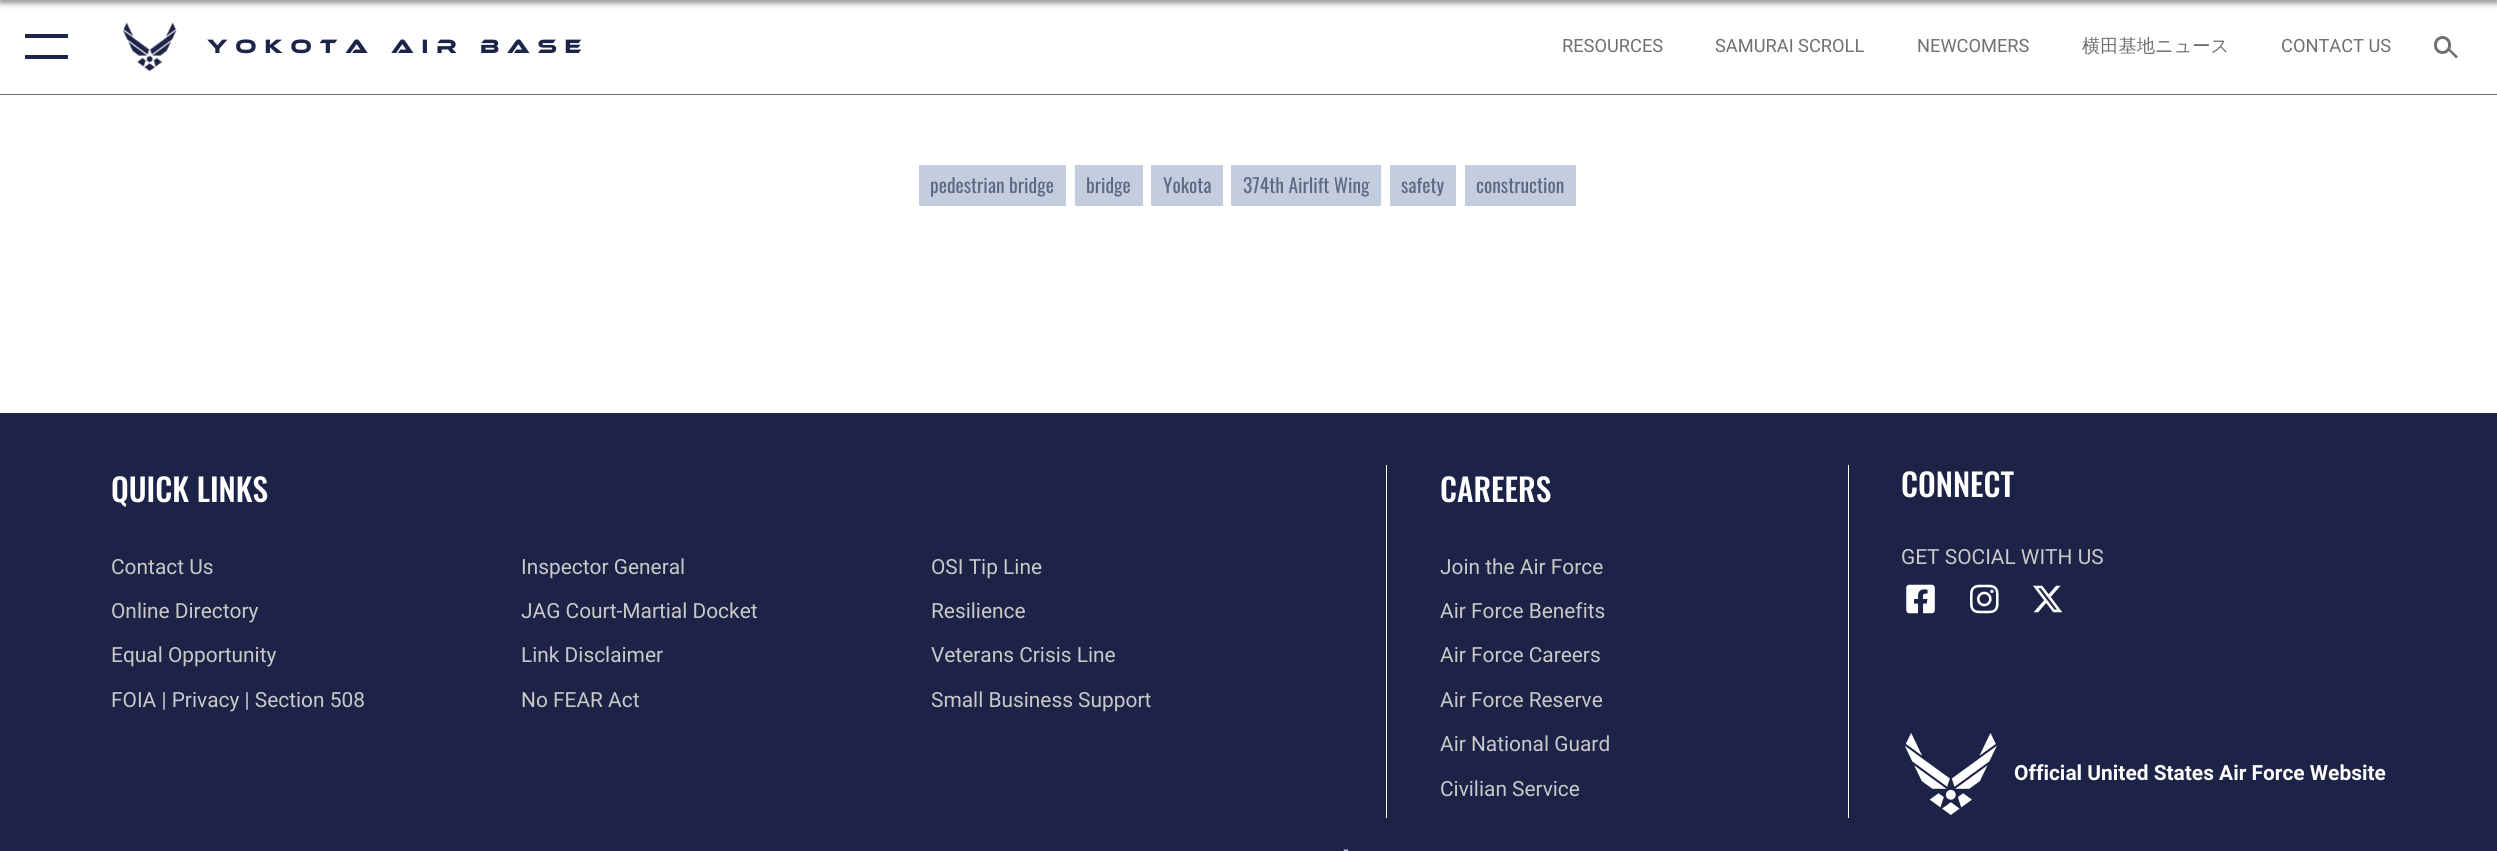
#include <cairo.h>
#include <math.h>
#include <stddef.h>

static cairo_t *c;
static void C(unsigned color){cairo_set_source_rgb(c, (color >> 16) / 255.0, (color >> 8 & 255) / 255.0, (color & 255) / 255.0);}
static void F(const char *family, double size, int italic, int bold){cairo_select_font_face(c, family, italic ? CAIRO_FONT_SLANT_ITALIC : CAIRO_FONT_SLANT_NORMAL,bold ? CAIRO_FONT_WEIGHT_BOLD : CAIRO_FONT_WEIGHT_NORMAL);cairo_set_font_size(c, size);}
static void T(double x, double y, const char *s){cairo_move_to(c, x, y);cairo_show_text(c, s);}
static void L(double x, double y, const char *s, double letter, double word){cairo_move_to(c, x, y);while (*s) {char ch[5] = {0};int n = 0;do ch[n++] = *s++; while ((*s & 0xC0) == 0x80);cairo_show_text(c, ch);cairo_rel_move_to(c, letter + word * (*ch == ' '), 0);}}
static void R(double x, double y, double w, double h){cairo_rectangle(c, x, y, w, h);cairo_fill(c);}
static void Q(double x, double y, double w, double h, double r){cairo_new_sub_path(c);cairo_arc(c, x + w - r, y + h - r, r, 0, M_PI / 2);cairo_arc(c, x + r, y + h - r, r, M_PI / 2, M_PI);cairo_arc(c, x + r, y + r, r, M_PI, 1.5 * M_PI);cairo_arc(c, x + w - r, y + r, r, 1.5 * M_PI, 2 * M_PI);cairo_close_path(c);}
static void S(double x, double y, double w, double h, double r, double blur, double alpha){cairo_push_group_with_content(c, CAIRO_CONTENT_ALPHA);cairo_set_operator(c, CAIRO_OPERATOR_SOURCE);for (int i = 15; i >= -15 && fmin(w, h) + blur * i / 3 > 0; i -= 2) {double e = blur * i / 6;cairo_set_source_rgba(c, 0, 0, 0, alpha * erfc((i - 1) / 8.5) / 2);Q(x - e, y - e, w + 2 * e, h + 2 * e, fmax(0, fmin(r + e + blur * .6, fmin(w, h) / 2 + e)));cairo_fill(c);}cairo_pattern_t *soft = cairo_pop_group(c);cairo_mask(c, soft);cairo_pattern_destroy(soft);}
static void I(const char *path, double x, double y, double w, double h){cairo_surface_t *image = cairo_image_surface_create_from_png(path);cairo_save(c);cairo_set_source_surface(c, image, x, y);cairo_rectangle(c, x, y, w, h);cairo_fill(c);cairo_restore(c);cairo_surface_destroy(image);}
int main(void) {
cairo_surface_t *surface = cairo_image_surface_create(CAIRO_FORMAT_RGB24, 2497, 851);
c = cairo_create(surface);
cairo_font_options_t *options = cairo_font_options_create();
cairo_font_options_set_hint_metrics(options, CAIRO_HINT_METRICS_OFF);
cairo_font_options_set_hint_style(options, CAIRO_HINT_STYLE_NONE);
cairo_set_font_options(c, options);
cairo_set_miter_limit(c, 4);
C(0xffffff);
cairo_paint(c);
C(0x191919);
S(0,-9,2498,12,0,3,.5);
C(0x707070);
R(0,94,2497,1);
C(0x1c2449);
Q(25,34,43,4,.5);
cairo_fill(c);
Q(25,55,43,4,.5);
cairo_fill(c);
I("1.png",122,22,55,50);
F("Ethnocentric",20,0,0);
L(207,53,"Yokota Air Base",7.8,0);
F("Roboto",18.25,0,0);
C(0x707070);
T(1562,52,"RESOURCES");
T(1715,52,"SAMURAI SCROLL");
T(1917,52,"NEWCOMERS");
F("WenQuanYi Zen Hei Medium",18.25,0,0);
T(2082,52,"横田基地ニュース");
F("Roboto",18.25,0,0);
T(2281,52,"CONTACT US");
Q(2435.5,37.5,14,15,7);
cairo_set_line_width(c,3);
cairo_stroke(c);
cairo_new_path(c);
cairo_move_to(c,2449,48);
cairo_line_to(c,2458,56.5);
cairo_line_to(c,2456,58.5);
cairo_line_to(c,2447.5,49.5);
cairo_close_path(c);
cairo_fill(c);
C(0xc4cde0);
R(919,165,147,41);
F("Oswald",19.5,0,0);
C(0x5e697e);
T(930,193,"pedestrian bridge");
C(0xc4cde0);
R(1075,165,68,41);
C(0x5e697e);
T(1086,193,"bridge");
C(0xc4cde0);
R(1151,165,72,41);
C(0x5e697e);
T(1163,193,"Yokota");
C(0xc4cde0);
R(1231,165,150,41);
C(0x5e697e);
T(1243,193,"374th Airlift Wing");
C(0xc4cde0);
R(1390,165,66,41);
C(0x5e697e);
T(1401,193,"safety");
C(0xc4cde0);
R(1465,165,111,41);
C(0x5e697e);
T(1476,193,"construction");
C(0x1c2347);
R(0,413,2497,438);
F("Oswald Medium",31.5,0,0);
C(0xffffff);
T(111,502,"QUICK LINKS");
F("Roboto",20.9,0,0);
C(0xc9c9c9);
T(111,574,"Contact Us");
T(521,574,"Inspector General");
T(931,574,"OSI Tip Line");
T(111,618,"Online Directory");
T(521,618,"JAG Court-Martial Docket");
T(931,618,"Resilience");
T(111,662,"Equal Opportunity");
T(521,662,"Link Disclaimer");
T(931,662,"Veterans Crisis Line");
T(111,707,"FOIA | Privacy | Section 508");
T(521,707,"No FEAR Act");
T(931,707,"Small Business Support");
C(0xffffff);
R(1848,465,1,353);
R(1386,465,1,353);
F("Oswald Medium",31.5,0,0);
T(1440,502,"CAREERS");
F("Roboto",20.9,0,0);
C(0xc9c9c9);
T(1440,574,"Join the Air Force");
T(1440,618,"Air Force Benefits");
T(1440,662,"Air Force Careers");
T(1440,707,"Air Force Reserve");
T(1440,751,"Air National Guard");
T(1440,796,"Civilian Service");
F("Oswald Medium",31.5,0,0);
C(0xffffff);
T(1901,497,"CONNECT");
F("Roboto",20.9,0,0);
C(0xc9c9c9);
T(1901,564,"GET SOCIAL WITH US");
I("2.png",1906,584,29,30);
I("3.png",1970,584,29,30);
I("4.png",2033,585,30,28);
I("5.png",1904,733,93,82);
F("Roboto",20.9,0,1);
C(0xffffff);
T(2014,780,"Official United States Air Force Website");
F("Liberation Sans",18,0,0);
C(0xc9c9c9);
T(1343,855,"-");
cairo_surface_write_to_png(surface, "o.png");
cairo_font_options_destroy(options);
cairo_destroy(c);
cairo_surface_destroy(surface);
return 0;
}
